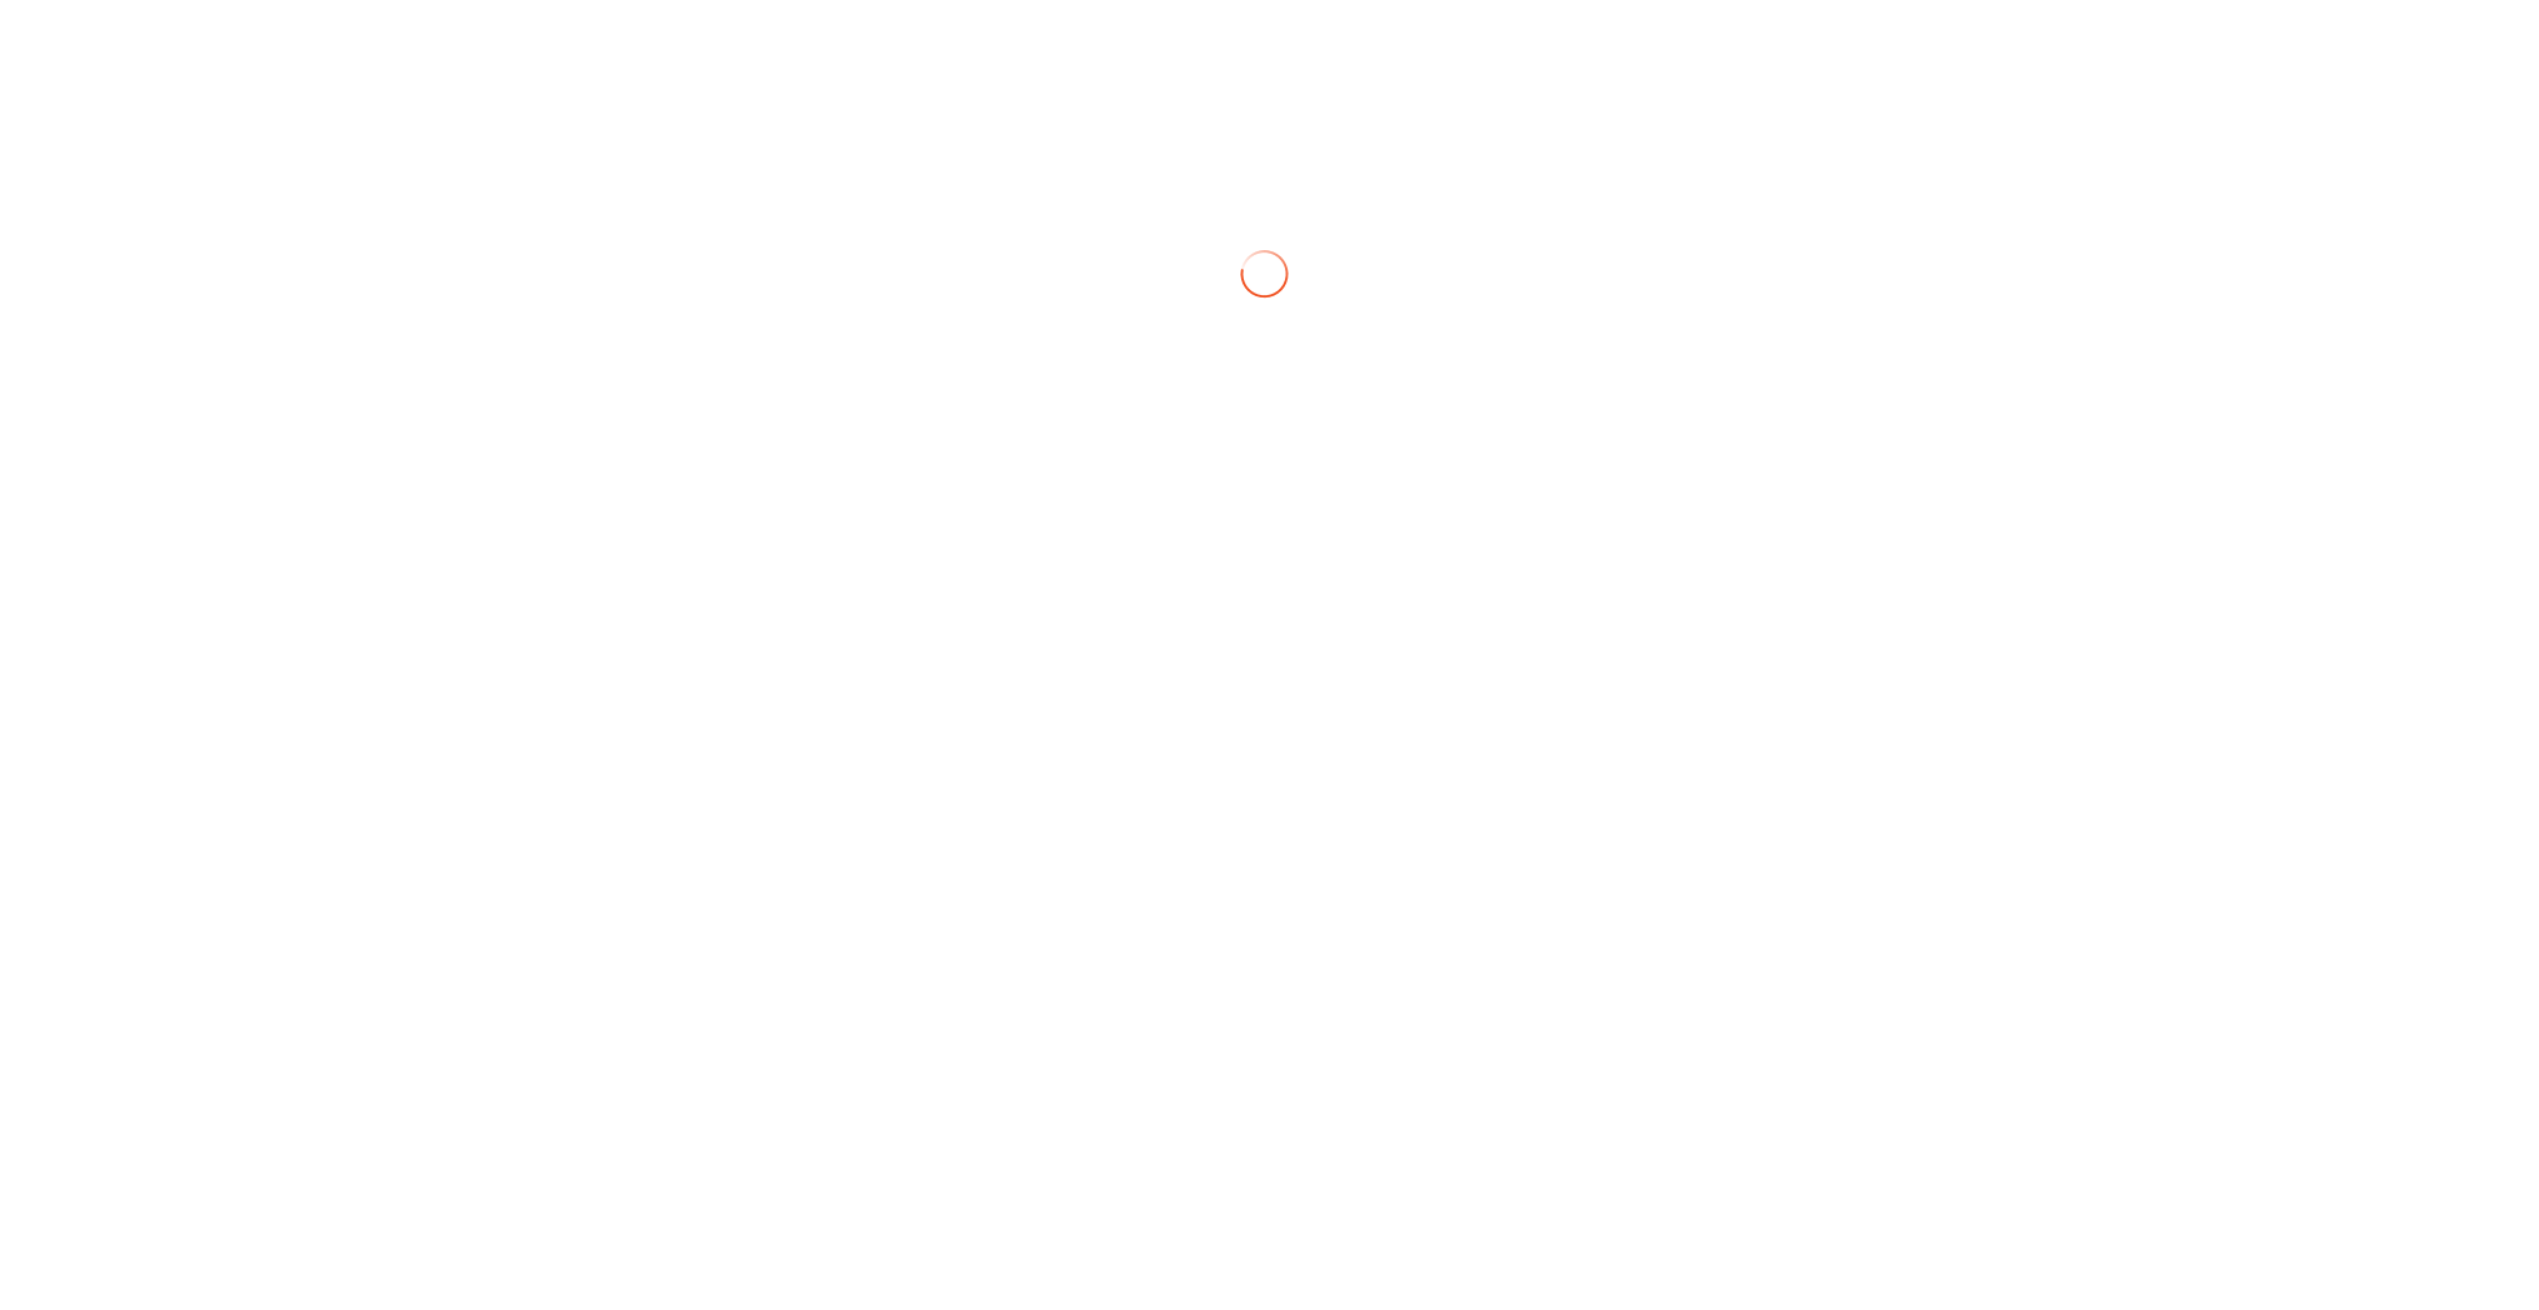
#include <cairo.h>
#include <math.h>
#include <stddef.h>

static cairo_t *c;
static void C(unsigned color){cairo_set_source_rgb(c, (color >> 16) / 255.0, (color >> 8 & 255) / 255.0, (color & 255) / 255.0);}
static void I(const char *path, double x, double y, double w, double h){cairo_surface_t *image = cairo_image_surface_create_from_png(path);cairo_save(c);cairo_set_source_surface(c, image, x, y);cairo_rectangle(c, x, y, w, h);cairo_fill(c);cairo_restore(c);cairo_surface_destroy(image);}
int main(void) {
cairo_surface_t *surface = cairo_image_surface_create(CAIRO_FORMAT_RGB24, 2539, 1310);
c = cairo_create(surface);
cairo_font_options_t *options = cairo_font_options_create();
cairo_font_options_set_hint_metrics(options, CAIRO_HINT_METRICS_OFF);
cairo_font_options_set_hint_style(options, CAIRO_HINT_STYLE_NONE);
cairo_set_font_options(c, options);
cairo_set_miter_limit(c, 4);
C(0xffffff);
cairo_paint(c);
I("1.png",1240,250,49,49);
cairo_surface_write_to_png(surface, "o.png");
cairo_font_options_destroy(options);
cairo_destroy(c);
cairo_surface_destroy(surface);
return 0;
}
